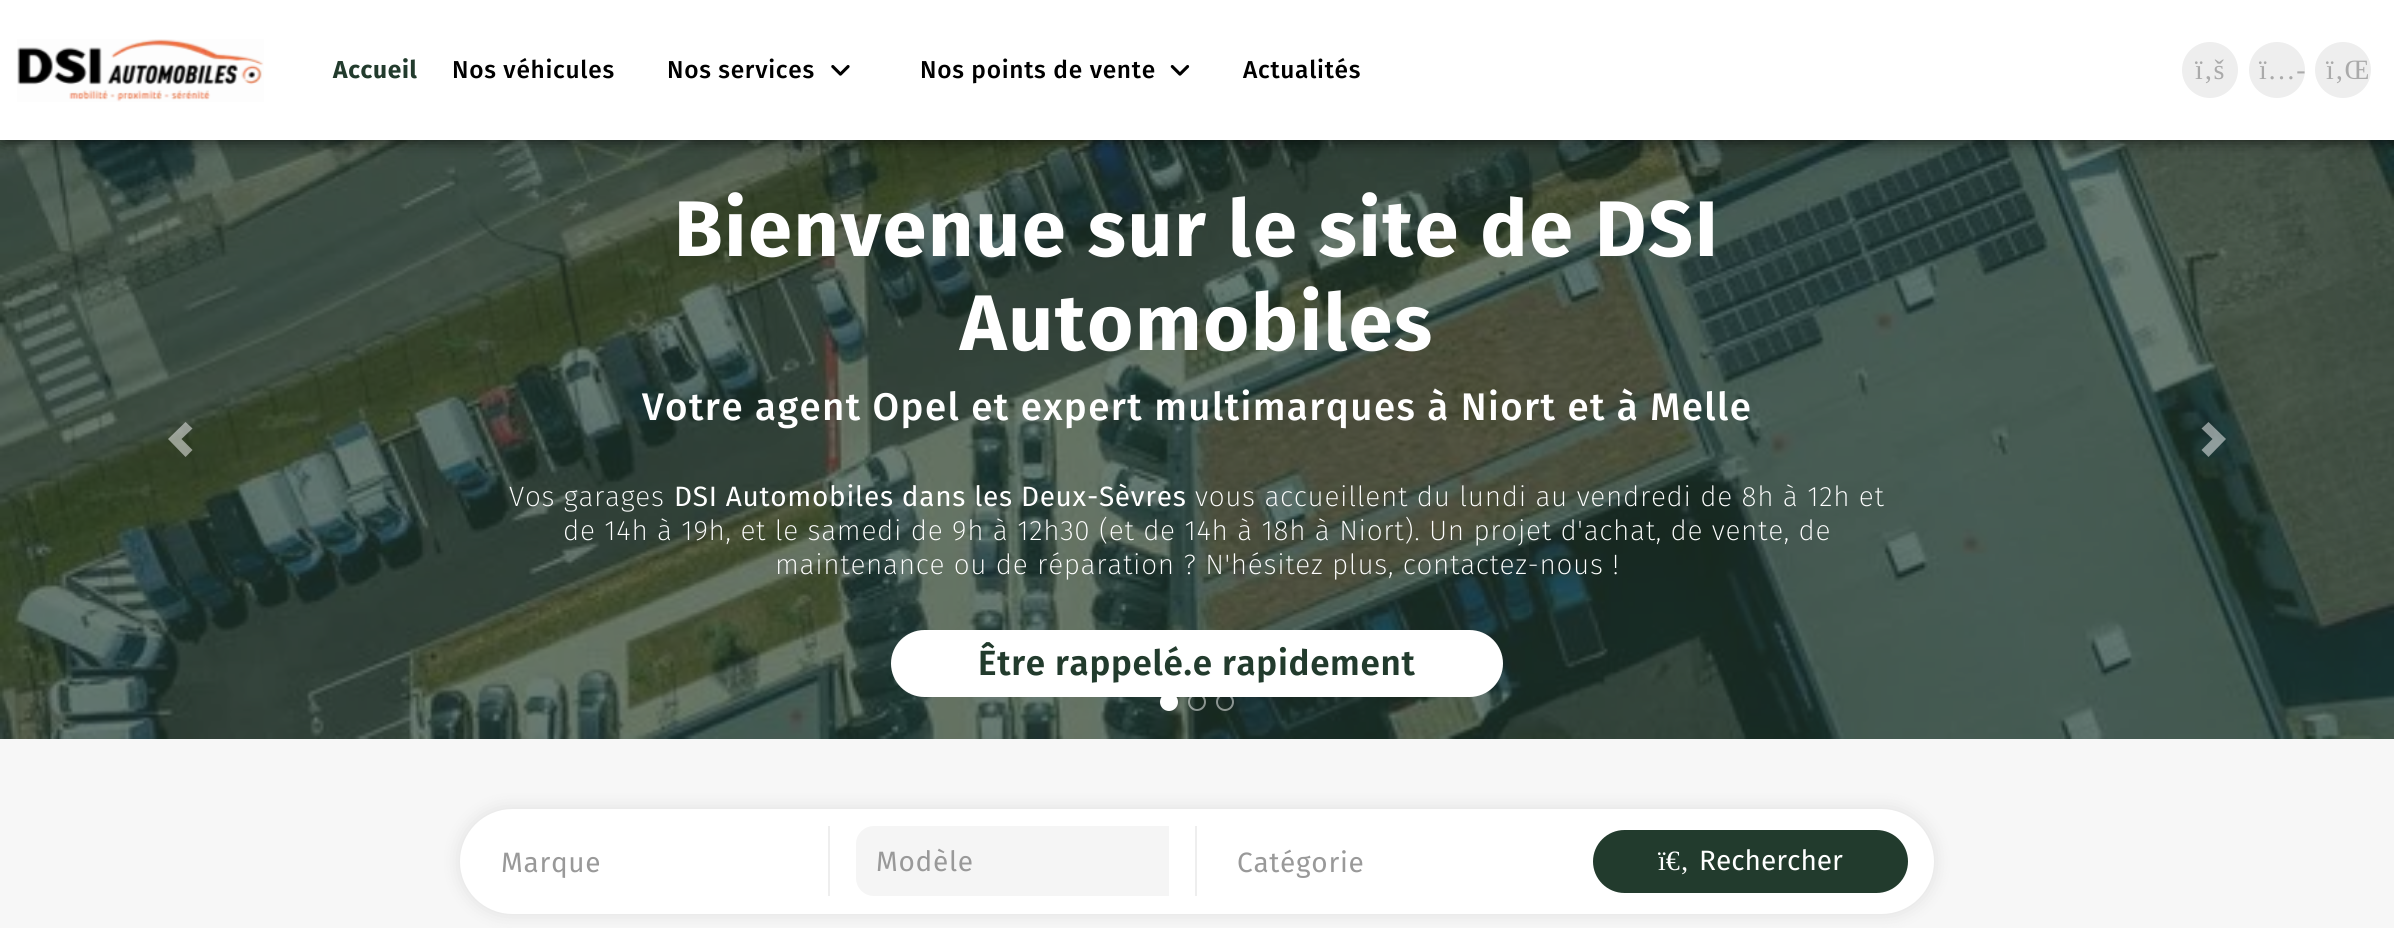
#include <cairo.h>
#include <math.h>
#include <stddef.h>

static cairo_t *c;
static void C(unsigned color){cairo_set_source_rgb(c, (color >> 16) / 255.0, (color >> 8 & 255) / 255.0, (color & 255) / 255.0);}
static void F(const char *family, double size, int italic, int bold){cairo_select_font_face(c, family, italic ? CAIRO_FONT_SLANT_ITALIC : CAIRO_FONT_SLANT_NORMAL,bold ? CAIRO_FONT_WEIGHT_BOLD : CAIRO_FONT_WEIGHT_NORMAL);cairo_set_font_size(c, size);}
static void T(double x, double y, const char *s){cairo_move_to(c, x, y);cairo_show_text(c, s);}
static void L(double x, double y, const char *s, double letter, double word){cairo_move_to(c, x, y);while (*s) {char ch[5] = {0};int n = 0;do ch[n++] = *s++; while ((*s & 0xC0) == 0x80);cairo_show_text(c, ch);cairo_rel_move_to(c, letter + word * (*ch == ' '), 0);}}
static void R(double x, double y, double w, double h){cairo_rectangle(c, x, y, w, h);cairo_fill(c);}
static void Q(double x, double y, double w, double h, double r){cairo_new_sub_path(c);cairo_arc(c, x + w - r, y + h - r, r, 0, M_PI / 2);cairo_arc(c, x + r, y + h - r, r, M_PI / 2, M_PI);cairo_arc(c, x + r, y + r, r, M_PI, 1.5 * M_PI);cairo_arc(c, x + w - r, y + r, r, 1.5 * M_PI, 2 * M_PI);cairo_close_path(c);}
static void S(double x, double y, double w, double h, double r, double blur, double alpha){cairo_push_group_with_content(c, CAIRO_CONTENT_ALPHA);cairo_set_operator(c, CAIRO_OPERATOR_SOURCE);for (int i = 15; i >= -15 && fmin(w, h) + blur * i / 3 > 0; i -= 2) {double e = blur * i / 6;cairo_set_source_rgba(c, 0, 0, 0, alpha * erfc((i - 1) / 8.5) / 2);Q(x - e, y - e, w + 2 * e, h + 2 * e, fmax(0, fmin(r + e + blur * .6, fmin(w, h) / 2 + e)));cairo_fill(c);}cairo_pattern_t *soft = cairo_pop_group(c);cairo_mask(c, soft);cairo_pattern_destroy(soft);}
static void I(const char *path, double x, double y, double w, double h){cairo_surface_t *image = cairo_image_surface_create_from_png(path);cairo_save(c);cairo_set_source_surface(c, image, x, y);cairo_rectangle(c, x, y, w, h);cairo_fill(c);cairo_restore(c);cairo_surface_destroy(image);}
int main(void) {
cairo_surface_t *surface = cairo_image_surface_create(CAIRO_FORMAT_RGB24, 2394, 928);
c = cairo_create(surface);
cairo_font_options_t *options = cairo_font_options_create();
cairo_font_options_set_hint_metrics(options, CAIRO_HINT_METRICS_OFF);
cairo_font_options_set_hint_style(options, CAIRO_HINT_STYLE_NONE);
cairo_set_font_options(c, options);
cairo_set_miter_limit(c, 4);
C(0xf7f7f7);
cairo_paint(c);
I("4.png",0,140,2394,599);
C(0x000000);
S(4,4,2387,133,0,9,1);
C(0xffffff);
R(0,0,2394,140);
I("1.png",17,39,247,63);
F("Fira Sans",24.5,0,1);
C(0x223b2d);
L(333,78,"Accueil",.7,0);
F("Fira Sans Medium",24.5,0,0);
C(0x000000);
L(452,78,"Nos véhicules",.7,0);
L(667,78,"Nos services",.7,0);
I("2.png",831,65,19,11);
L(920,78,"Nos points de vente",.7,0);
I("3.png",1170,65,20,11);
L(1243,78,"Actualités",.7,0);
C(0xeeeeee);
cairo_new_path(c);
cairo_arc(c,2210,70,28,0,2 * M_PI);
cairo_fill(c);
F("Liberation Serif",28,0,0);
C(0xaaaaaa);
L(2195,79,"ï‚š",.7,0);
C(0xeeeeee);
cairo_new_path(c);
cairo_arc(c,2277,70,28,0,2 * M_PI);
cairo_fill(c);
C(0xaaaaaa);
L(2259,79,"ï…-",.7,0);
C(0xeeeeee);
cairo_new_path(c);
cairo_arc(c,2343,70,28,0,2 * M_PI);
cairo_fill(c);
C(0xaaaaaa);
L(2326,79,"ï‚Œ",.7,0);
cairo_set_source_rgba(c,1,1,1,0.5);
cairo_new_path(c);
cairo_move_to(c,185.5,422);
cairo_line_to(c,168,439);
cairo_line_to(c,185.5,457);
cairo_line_to(c,192.5,450);
cairo_line_to(c,181.5,439);
cairo_line_to(c,192.5,428.5);
cairo_close_path(c);
cairo_fill(c);
F("Fira Sans",78.75,0,1);
C(0xffffff);
L(674,256,"Bienvenue sur le site de DSI",1.75,0);
L(960,350,"Automobiles",1.75,0);
F("Fira Sans Medium",38.5,0,0);
L(642,420,"Votre agent Opel et expert multimarques à Niort et à Melle",1.4,0);
F("Fira Sans ExtraLight",28,0,0);
L(509,506,"Vos garages",.7,0);
F("Fira Sans",28,0,0);
L(674,506,"DSI Automobiles dans les Deux-Sèvres",.7,0);
F("Fira Sans ExtraLight",28,0,0);
L(1195,506,"vous accueillent du lundi au vendredi de 8h à 12h et",.7,0);
L(563,540,"de 14h à 19h, et le samedi de 9h à 12h30 (et de 14h à 18h à Niort). Un projet d'achat, de vente, de",.7,0);
L(775,574,"maintenance ou de réparation ? N'hésitez plus, contactez-nous !",.7,0);
Q(891,630,612,67,33.5);
cairo_fill(c);
F("Fira Sans SemiBold",35,0,0);
C(0x223b2d);
L(978,675,"Être rappelé.e rapidement",.7,0);
cairo_set_source_rgba(c,1,1,1,0.5);
cairo_new_path(c);
cairo_move_to(c,2208.5,422);
cairo_line_to(c,2201.5,428.5);
cairo_line_to(c,2212.5,439);
cairo_line_to(c,2201.5,450);
cairo_line_to(c,2208.5,457);
cairo_line_to(c,2226,439);
cairo_close_path(c);
cairo_fill(c);
C(0xffffff);
cairo_arc(c,1169,702,8,0,2 * M_PI);
cairo_fill_preserve(c);
cairo_stroke(c);
cairo_arc(c,1197,702,8,0,2 * M_PI);
cairo_set_source_rgba(c,1,1,1,0.5);
cairo_stroke(c);
cairo_arc(c,1225,702,8,0,2 * M_PI);
cairo_stroke(c);
C(0x000000);
S(460,809,1474,105,52.5,9,.1);
C(0xffffff);
Q(460,809,1474,105,52.5);
cairo_fill(c);
C(0xeeeeee);
R(828,826,2,70);
F("Fira Sans",28,0,0);
C(0x999999);
L(501,872,"Marque",.7,0);
C(0xeeeeee);
R(1195,826,2,70);
C(0xf5f5f5);
cairo_new_path(c);
cairo_move_to(c,874,826);
cairo_line_to(c,1169,826);
cairo_line_to(c,1169,896);
cairo_line_to(c,874,896);
cairo_curve_to(c,864,896,856,888,856,878);
cairo_line_to(c,856,844);
cairo_curve_to(c,856,834,864,826,874,826);
cairo_close_path(c);
cairo_fill(c);
C(0x999999);
L(876,871,"Modèle",.7,0);
L(1237,872,"Catégorie",.7,0);
C(0x223b2d);
Q(1593,830,315,63,31.5);
cairo_fill(c);
F("Liberation Serif",28,0,0);
C(0xffffff);
T(1658,870,"ï€‚");
F("Fira Sans",28,0,0);
T(1699,870,"Rechercher");
cairo_surface_write_to_png(surface, "o.png");
cairo_font_options_destroy(options);
cairo_destroy(c);
cairo_surface_destroy(surface);
return 0;
}
